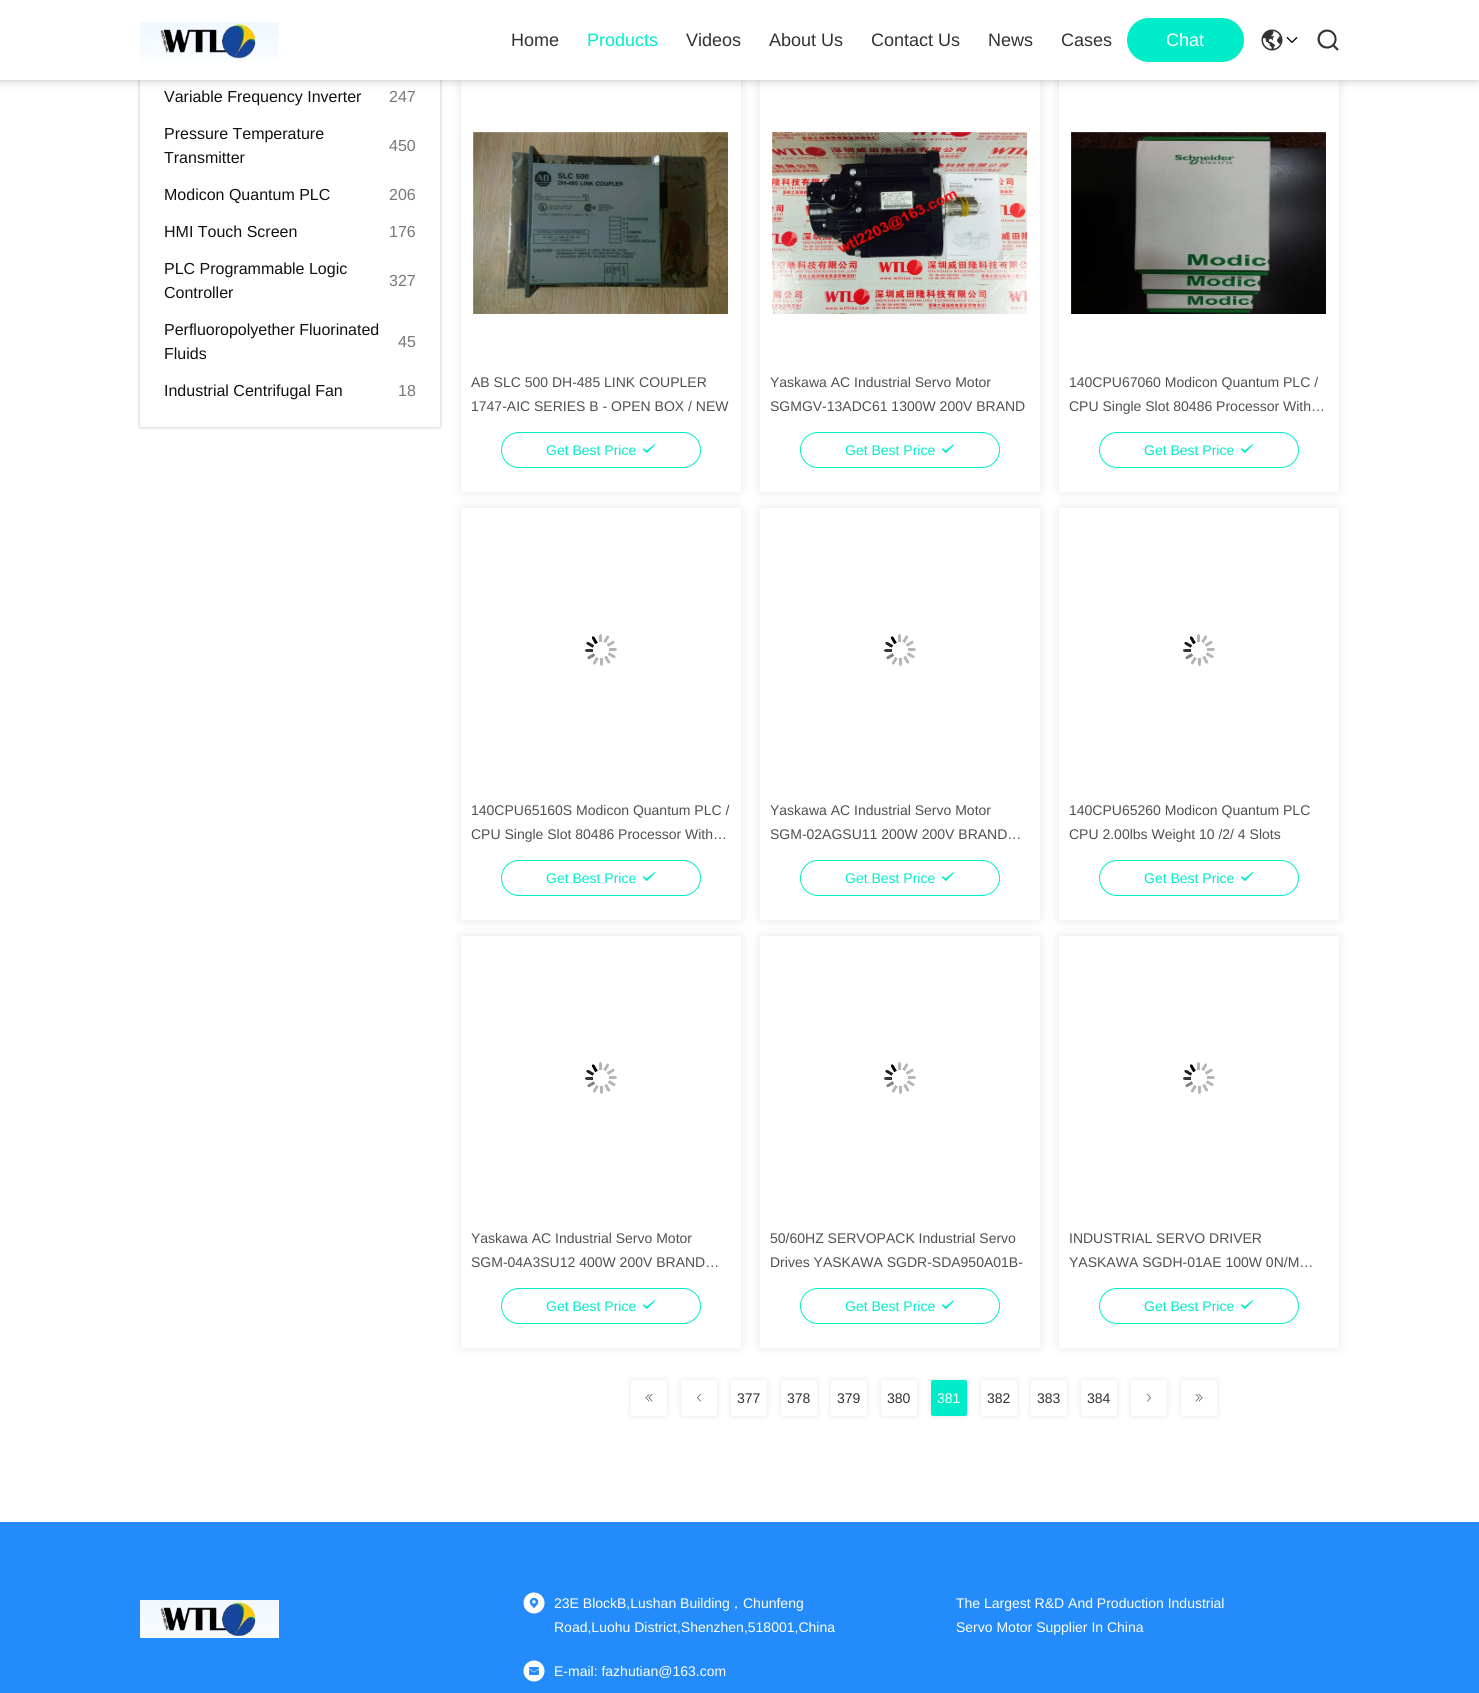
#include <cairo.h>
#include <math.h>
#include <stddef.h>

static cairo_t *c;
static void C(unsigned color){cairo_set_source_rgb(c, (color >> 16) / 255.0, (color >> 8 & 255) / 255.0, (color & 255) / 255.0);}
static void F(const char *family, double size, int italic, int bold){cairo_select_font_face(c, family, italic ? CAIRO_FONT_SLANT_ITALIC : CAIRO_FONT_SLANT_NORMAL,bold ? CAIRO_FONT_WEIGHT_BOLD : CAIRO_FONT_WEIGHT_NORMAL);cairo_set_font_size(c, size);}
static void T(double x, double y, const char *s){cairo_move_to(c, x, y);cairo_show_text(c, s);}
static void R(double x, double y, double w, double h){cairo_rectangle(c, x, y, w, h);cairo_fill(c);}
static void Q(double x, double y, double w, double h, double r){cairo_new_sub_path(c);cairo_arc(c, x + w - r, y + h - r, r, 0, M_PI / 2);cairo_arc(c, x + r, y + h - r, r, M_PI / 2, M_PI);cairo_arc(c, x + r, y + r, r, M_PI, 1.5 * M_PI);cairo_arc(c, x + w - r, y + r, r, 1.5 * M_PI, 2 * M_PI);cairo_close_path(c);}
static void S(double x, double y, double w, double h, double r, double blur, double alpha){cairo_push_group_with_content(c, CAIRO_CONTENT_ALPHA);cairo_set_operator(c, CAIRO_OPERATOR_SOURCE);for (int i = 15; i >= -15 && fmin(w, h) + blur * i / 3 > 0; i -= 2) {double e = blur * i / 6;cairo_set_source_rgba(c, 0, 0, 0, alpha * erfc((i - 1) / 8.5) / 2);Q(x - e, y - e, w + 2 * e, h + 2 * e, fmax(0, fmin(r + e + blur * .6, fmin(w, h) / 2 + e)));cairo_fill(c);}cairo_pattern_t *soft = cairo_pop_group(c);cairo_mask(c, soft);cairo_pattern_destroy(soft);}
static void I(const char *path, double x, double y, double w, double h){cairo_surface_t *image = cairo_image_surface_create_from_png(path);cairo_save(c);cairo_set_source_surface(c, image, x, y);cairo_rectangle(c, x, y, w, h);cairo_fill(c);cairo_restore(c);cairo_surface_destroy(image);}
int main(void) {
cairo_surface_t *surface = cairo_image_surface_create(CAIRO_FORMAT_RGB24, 1479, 1693);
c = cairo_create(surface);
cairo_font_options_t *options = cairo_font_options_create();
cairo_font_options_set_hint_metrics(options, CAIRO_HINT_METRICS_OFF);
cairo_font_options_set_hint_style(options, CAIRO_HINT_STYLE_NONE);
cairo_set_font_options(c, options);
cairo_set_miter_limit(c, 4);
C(0xffffff);
cairo_paint(c);
C(0x000000);
S(0,0,1479,80,0,5,.25);
cairo_save(c);
cairo_set_fill_rule(c,CAIRO_FILL_RULE_EVEN_ODD);
cairo_new_path(c);
cairo_move_to(c,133,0);
cairo_line_to(c,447,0);
cairo_line_to(c,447,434);
cairo_line_to(c,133,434);
cairo_close_path(c);
cairo_move_to(c,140,-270);
cairo_line_to(c,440,-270);
cairo_line_to(c,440,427);
cairo_line_to(c,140,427);
cairo_close_path(c);
cairo_clip(c);
S(140,-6,300,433,0,2,.25);
cairo_restore(c);
cairo_save(c);
cairo_set_fill_rule(c,CAIRO_FILL_RULE_EVEN_ODD);
cairo_new_path(c);
cairo_move_to(c,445,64);
cairo_line_to(c,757,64);
cairo_line_to(c,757,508);
cairo_line_to(c,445,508);
cairo_close_path(c);
cairo_move_to(c,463,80);
cairo_line_to(c,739,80);
cairo_curve_to(c,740,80,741,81,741,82);
cairo_line_to(c,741,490);
cairo_curve_to(c,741,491,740,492,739,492);
cairo_line_to(c,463,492);
cairo_curve_to(c,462,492,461,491,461,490);
cairo_line_to(c,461,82);
cairo_curve_to(c,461,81,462,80,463,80);
cairo_close_path(c);
cairo_clip(c);
S(461,80,280,412,2,5,.1);
cairo_restore(c);
cairo_save(c);
cairo_set_fill_rule(c,CAIRO_FILL_RULE_EVEN_ODD);
cairo_new_path(c);
cairo_move_to(c,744,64);
cairo_line_to(c,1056,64);
cairo_line_to(c,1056,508);
cairo_line_to(c,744,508);
cairo_close_path(c);
cairo_move_to(c,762,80);
cairo_line_to(c,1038,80);
cairo_curve_to(c,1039,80,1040,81,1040,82);
cairo_line_to(c,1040,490);
cairo_curve_to(c,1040,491,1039,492,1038,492);
cairo_line_to(c,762,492);
cairo_curve_to(c,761,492,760,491,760,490);
cairo_line_to(c,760,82);
cairo_curve_to(c,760,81,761,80,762,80);
cairo_close_path(c);
cairo_clip(c);
S(760,80,280,412,2,5,.1);
cairo_restore(c);
cairo_save(c);
cairo_set_fill_rule(c,CAIRO_FILL_RULE_EVEN_ODD);
cairo_new_path(c);
cairo_move_to(c,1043,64);
cairo_line_to(c,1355,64);
cairo_line_to(c,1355,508);
cairo_line_to(c,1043,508);
cairo_close_path(c);
cairo_move_to(c,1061,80);
cairo_line_to(c,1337,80);
cairo_curve_to(c,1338,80,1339,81,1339,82);
cairo_line_to(c,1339,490);
cairo_curve_to(c,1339,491,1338,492,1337,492);
cairo_line_to(c,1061,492);
cairo_curve_to(c,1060,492,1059,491,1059,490);
cairo_line_to(c,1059,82);
cairo_curve_to(c,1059,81,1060,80,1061,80);
cairo_close_path(c);
cairo_clip(c);
S(1059,80,280,412,2,5,.1);
cairo_restore(c);
C(0xffffff);
R(0,0,1479,80);
I("1.png",140,22,139,38);
F("Liberation Sans",18,0,0);
C(0x323232);
T(511,46,"Home");
C(0x01edc9);
T(587,46,"Products");
C(0x323232);
T(686,46,"Videos");
T(769,46,"About Us");
T(871,46,"Contact Us");
T(988,46,"News");
T(1061,46,"Cases");
C(0x01edc9);
Q(1127,18,117,44,22);
cairo_fill(c);
C(0xffffff);
T(1166,46,"Chat");
I("2.png",1261,29,22,22);
I("3.png",1286,37,12,6);
I("4.png",1317,29,22,22);
F("Liberation Sans",16,0,0);
C(0x111111);
T(164,102,"Variable Frequency Inverter");
C(0x777777);
T(389,102,"247");
C(0x111111);
T(164,139,"Pressure Temperature");
T(164,163,"Transmitter");
C(0x777777);
T(389,151,"450");
C(0x111111);
T(164,200,"Modicon Quantum PLC");
C(0x777777);
T(389,200,"206");
C(0x111111);
T(164,237,"HMI Touch Screen");
C(0x777777);
T(389,237,"176");
C(0x111111);
T(164,274,"PLC Programmable Logic");
T(164,298,"Controller");
C(0x777777);
T(389,286,"327");
C(0x111111);
T(164,335,"Perfluoropolyether Fluorinated");
T(164,359,"Fluids");
C(0x777777);
T(398,347,"45");
C(0x111111);
T(164,396,"Industrial Centrifugal Fan");
C(0x777777);
T(398,396,"18");
I("5.png",473,132,255,182);
F("Liberation Sans",14,0,0);
C(0x505050);
T(471,387,"AB SLC 500 DH-485 LINK COUPLER");
T(471,411,"1747-AIC SERIES B - OPEN BOX / NEW");
Q(501.5,432.5,199,35,17.5);
C(0x01edc9);
cairo_set_line_width(c,1);
cairo_stroke(c);
T(546,455,"Get Best Price");
I("6.png",642,444,14,9);
I("7.png",772,132,255,182);
C(0x505050);
T(770,387,"Yaskawa AC Industrial Servo Motor");
T(770,411,"SGMGV-13ADC61 1300W 200V BRAND");
Q(800.5,432.5,199,35,17.5);
C(0x01edc9);
cairo_stroke(c);
T(845,455,"Get Best Price");
I("6.png",941,444,14,9);
I("8.png",1071,132,255,182);
C(0x505050);
T(1069,387,"140CPU67060 Modicon Quantum PLC /");
T(1069,411,"CPU Single Slot 80486 Processor With…");
Q(1099.5,432.5,199,35,17.5);
C(0x01edc9);
cairo_stroke(c);
T(1144,455,"Get Best Price");
I("6.png",1240,444,14,9);
cairo_save(c);
cairo_set_fill_rule(c,CAIRO_FILL_RULE_EVEN_ODD);
cairo_new_path(c);
cairo_move_to(c,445,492);
cairo_line_to(c,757,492);
cairo_line_to(c,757,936);
cairo_line_to(c,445,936);
cairo_close_path(c);
cairo_move_to(c,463,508);
cairo_line_to(c,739,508);
cairo_curve_to(c,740,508,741,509,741,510);
cairo_line_to(c,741,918);
cairo_curve_to(c,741,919,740,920,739,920);
cairo_line_to(c,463,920);
cairo_curve_to(c,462,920,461,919,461,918);
cairo_line_to(c,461,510);
cairo_curve_to(c,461,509,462,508,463,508);
cairo_close_path(c);
cairo_clip(c);
C(0x000000);
S(461,508,280,412,2,5,.1);
cairo_restore(c);
I("9.png",585,634,32,32);
C(0x505050);
T(471,815,"140CPU65160S Modicon Quantum PLC /");
T(471,839,"CPU Single Slot 80486 Processor With…");
Q(501.5,860.5,199,35,17.5);
C(0x01edc9);
cairo_stroke(c);
T(546,883,"Get Best Price");
I("6.png",642,872,14,9);
cairo_save(c);
cairo_set_fill_rule(c,CAIRO_FILL_RULE_EVEN_ODD);
cairo_new_path(c);
cairo_move_to(c,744,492);
cairo_line_to(c,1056,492);
cairo_line_to(c,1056,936);
cairo_line_to(c,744,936);
cairo_close_path(c);
cairo_move_to(c,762,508);
cairo_line_to(c,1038,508);
cairo_curve_to(c,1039,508,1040,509,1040,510);
cairo_line_to(c,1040,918);
cairo_curve_to(c,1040,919,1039,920,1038,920);
cairo_line_to(c,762,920);
cairo_curve_to(c,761,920,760,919,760,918);
cairo_line_to(c,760,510);
cairo_curve_to(c,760,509,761,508,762,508);
cairo_close_path(c);
cairo_clip(c);
C(0x000000);
S(760,508,280,412,2,5,.1);
cairo_restore(c);
I("9.png",884,634,32,32);
C(0x505050);
T(770,815,"Yaskawa AC Industrial Servo Motor");
T(770,839,"SGM-02AGSU11 200W 200V BRAND…");
Q(800.5,860.5,199,35,17.5);
C(0x01edc9);
cairo_stroke(c);
T(845,883,"Get Best Price");
I("6.png",941,872,14,9);
cairo_save(c);
cairo_set_fill_rule(c,CAIRO_FILL_RULE_EVEN_ODD);
cairo_new_path(c);
cairo_move_to(c,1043,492);
cairo_line_to(c,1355,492);
cairo_line_to(c,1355,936);
cairo_line_to(c,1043,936);
cairo_close_path(c);
cairo_move_to(c,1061,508);
cairo_line_to(c,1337,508);
cairo_curve_to(c,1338,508,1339,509,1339,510);
cairo_line_to(c,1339,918);
cairo_curve_to(c,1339,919,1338,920,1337,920);
cairo_line_to(c,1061,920);
cairo_curve_to(c,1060,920,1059,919,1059,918);
cairo_line_to(c,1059,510);
cairo_curve_to(c,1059,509,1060,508,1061,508);
cairo_close_path(c);
cairo_clip(c);
C(0x000000);
S(1059,508,280,412,2,5,.1);
cairo_restore(c);
I("9.png",1183,634,32,32);
C(0x505050);
T(1069,815,"140CPU65260 Modicon Quantum PLC");
T(1069,839,"CPU 2.00lbs Weight 10 /2/ 4 Slots");
Q(1099.5,860.5,199,35,17.5);
C(0x01edc9);
cairo_stroke(c);
T(1144,883,"Get Best Price");
I("6.png",1240,872,14,9);
cairo_save(c);
cairo_set_fill_rule(c,CAIRO_FILL_RULE_EVEN_ODD);
cairo_new_path(c);
cairo_move_to(c,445,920);
cairo_line_to(c,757,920);
cairo_line_to(c,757,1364);
cairo_line_to(c,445,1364);
cairo_close_path(c);
cairo_move_to(c,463,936);
cairo_line_to(c,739,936);
cairo_curve_to(c,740,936,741,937,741,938);
cairo_line_to(c,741,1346);
cairo_curve_to(c,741,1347,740,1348,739,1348);
cairo_line_to(c,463,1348);
cairo_curve_to(c,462,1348,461,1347,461,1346);
cairo_line_to(c,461,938);
cairo_curve_to(c,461,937,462,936,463,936);
cairo_close_path(c);
cairo_clip(c);
C(0x000000);
S(461,936,280,412,2,5,.1);
cairo_restore(c);
I("9.png",585,1062,32,32);
C(0x505050);
T(471,1243,"Yaskawa AC Industrial Servo Motor");
T(471,1267,"SGM-04A3SU12 400W 200V BRAND…");
Q(501.5,1288.5,199,35,17.5);
C(0x01edc9);
cairo_stroke(c);
T(546,1311,"Get Best Price");
I("6.png",642,1300,14,9);
cairo_save(c);
cairo_set_fill_rule(c,CAIRO_FILL_RULE_EVEN_ODD);
cairo_new_path(c);
cairo_move_to(c,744,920);
cairo_line_to(c,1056,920);
cairo_line_to(c,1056,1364);
cairo_line_to(c,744,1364);
cairo_close_path(c);
cairo_move_to(c,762,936);
cairo_line_to(c,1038,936);
cairo_curve_to(c,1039,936,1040,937,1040,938);
cairo_line_to(c,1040,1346);
cairo_curve_to(c,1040,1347,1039,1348,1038,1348);
cairo_line_to(c,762,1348);
cairo_curve_to(c,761,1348,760,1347,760,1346);
cairo_line_to(c,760,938);
cairo_curve_to(c,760,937,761,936,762,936);
cairo_close_path(c);
cairo_clip(c);
C(0x000000);
S(760,936,280,412,2,5,.1);
cairo_restore(c);
I("9.png",884,1062,32,32);
C(0x505050);
T(770,1243,"50/60HZ SERVOPACK Industrial Servo");
T(770,1267,"Drives YASKAWA SGDR-SDA950A01B-");
Q(800.5,1288.5,199,35,17.5);
C(0x01edc9);
cairo_stroke(c);
T(845,1311,"Get Best Price");
I("6.png",941,1300,14,9);
cairo_save(c);
cairo_set_fill_rule(c,CAIRO_FILL_RULE_EVEN_ODD);
cairo_new_path(c);
cairo_move_to(c,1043,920);
cairo_line_to(c,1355,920);
cairo_line_to(c,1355,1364);
cairo_line_to(c,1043,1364);
cairo_close_path(c);
cairo_move_to(c,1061,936);
cairo_line_to(c,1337,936);
cairo_curve_to(c,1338,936,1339,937,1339,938);
cairo_line_to(c,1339,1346);
cairo_curve_to(c,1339,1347,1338,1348,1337,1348);
cairo_line_to(c,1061,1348);
cairo_curve_to(c,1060,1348,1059,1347,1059,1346);
cairo_line_to(c,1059,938);
cairo_curve_to(c,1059,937,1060,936,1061,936);
cairo_close_path(c);
cairo_clip(c);
C(0x000000);
S(1059,936,280,412,2,5,.1);
cairo_restore(c);
I("9.png",1183,1062,32,32);
C(0x505050);
T(1069,1243,"INDUSTRIAL SERVO DRIVER");
T(1069,1267,"YASKAWA SGDH-01AE 100W 0N/M…");
Q(1099.5,1288.5,199,35,17.5);
C(0x01edc9);
cairo_stroke(c);
T(1144,1311,"Get Best Price");
I("6.png",1240,1300,14,9);
C(0x000000);
S(631,1380,36,36,2,3,.1);
C(0xffffff);
Q(631,1380,36,36,2);
cairo_fill(c);
I("10.png",645,1394,8,8);
C(0x000000);
S(681,1380,36,36,2,3,.1);
C(0xffffff);
Q(681,1380,36,36,2);
cairo_fill(c);
I("11.png",697,1394,4,8);
C(0x000000);
S(731,1380,36,36,2,3,.1);
C(0xffffff);
Q(731,1380,36,36,2);
cairo_fill(c);
C(0x323232);
T(737,1403,"377");
C(0x000000);
S(781,1380,36,36,2,3,.1);
C(0xffffff);
Q(781,1380,36,36,2);
cairo_fill(c);
C(0x323232);
T(787,1403,"378");
C(0x000000);
S(831,1380,36,36,2,3,.1);
C(0xffffff);
Q(831,1380,36,36,2);
cairo_fill(c);
C(0x323232);
T(837,1403,"379");
C(0x000000);
S(881,1380,36,36,2,3,.1);
C(0xffffff);
Q(881,1380,36,36,2);
cairo_fill(c);
C(0x323232);
T(887,1403,"380");
C(0x000000);
S(931,1380,36,36,2,3,.1);
C(0x01edc9);
Q(931,1380,36,36,2);
cairo_fill(c);
C(0xffffff);
T(937,1403,"381");
C(0x000000);
S(981,1380,36,36,2,3,.1);
C(0xffffff);
Q(981,1380,36,36,2);
cairo_fill(c);
C(0x323232);
T(987,1403,"382");
C(0x000000);
S(1031,1380,36,36,2,3,.1);
C(0xffffff);
Q(1031,1380,36,36,2);
cairo_fill(c);
C(0x323232);
T(1037,1403,"383");
C(0x000000);
S(1081,1380,36,36,2,3,.1);
C(0xffffff);
Q(1081,1380,36,36,2);
cairo_fill(c);
C(0x323232);
T(1087,1403,"384");
C(0x000000);
S(1131,1380,36,36,2,3,.1);
C(0xffffff);
Q(1131,1380,36,36,2);
cairo_fill(c);
I("12.png",1147,1394,4,8);
C(0x000000);
S(1181,1380,36,36,2,3,.1);
C(0xffffff);
Q(1181,1380,36,36,2);
cairo_fill(c);
I("13.png",1195,1394,8,8);
C(0x238bfa);
R(0,1522,1479,171);
I("14.png",140,1600,139,38);
I("15.png",523,1592,22,22);
C(0xffffff);
T(554,1608,"23E BlockB,Lushan Building");
F("WenQuanYi Zen Hei Medium",14,0,0);
T(729,1608,"，");
F("Liberation Sans",14,0,0);
T(743,1608,"Chunfeng");
T(554,1632,"Road,Luohu District,Shenzhen,518001,China");
I("16.png",523,1660,22,22);
T(554,1676,"E-mail: fazhutian@163.com");
T(956,1608,"The Largest R&D And Production Industrial");
T(956,1632,"Servo Motor Supplier In China");
cairo_surface_write_to_png(surface, "o.png");
cairo_font_options_destroy(options);
cairo_destroy(c);
cairo_surface_destroy(surface);
return 0;
}
